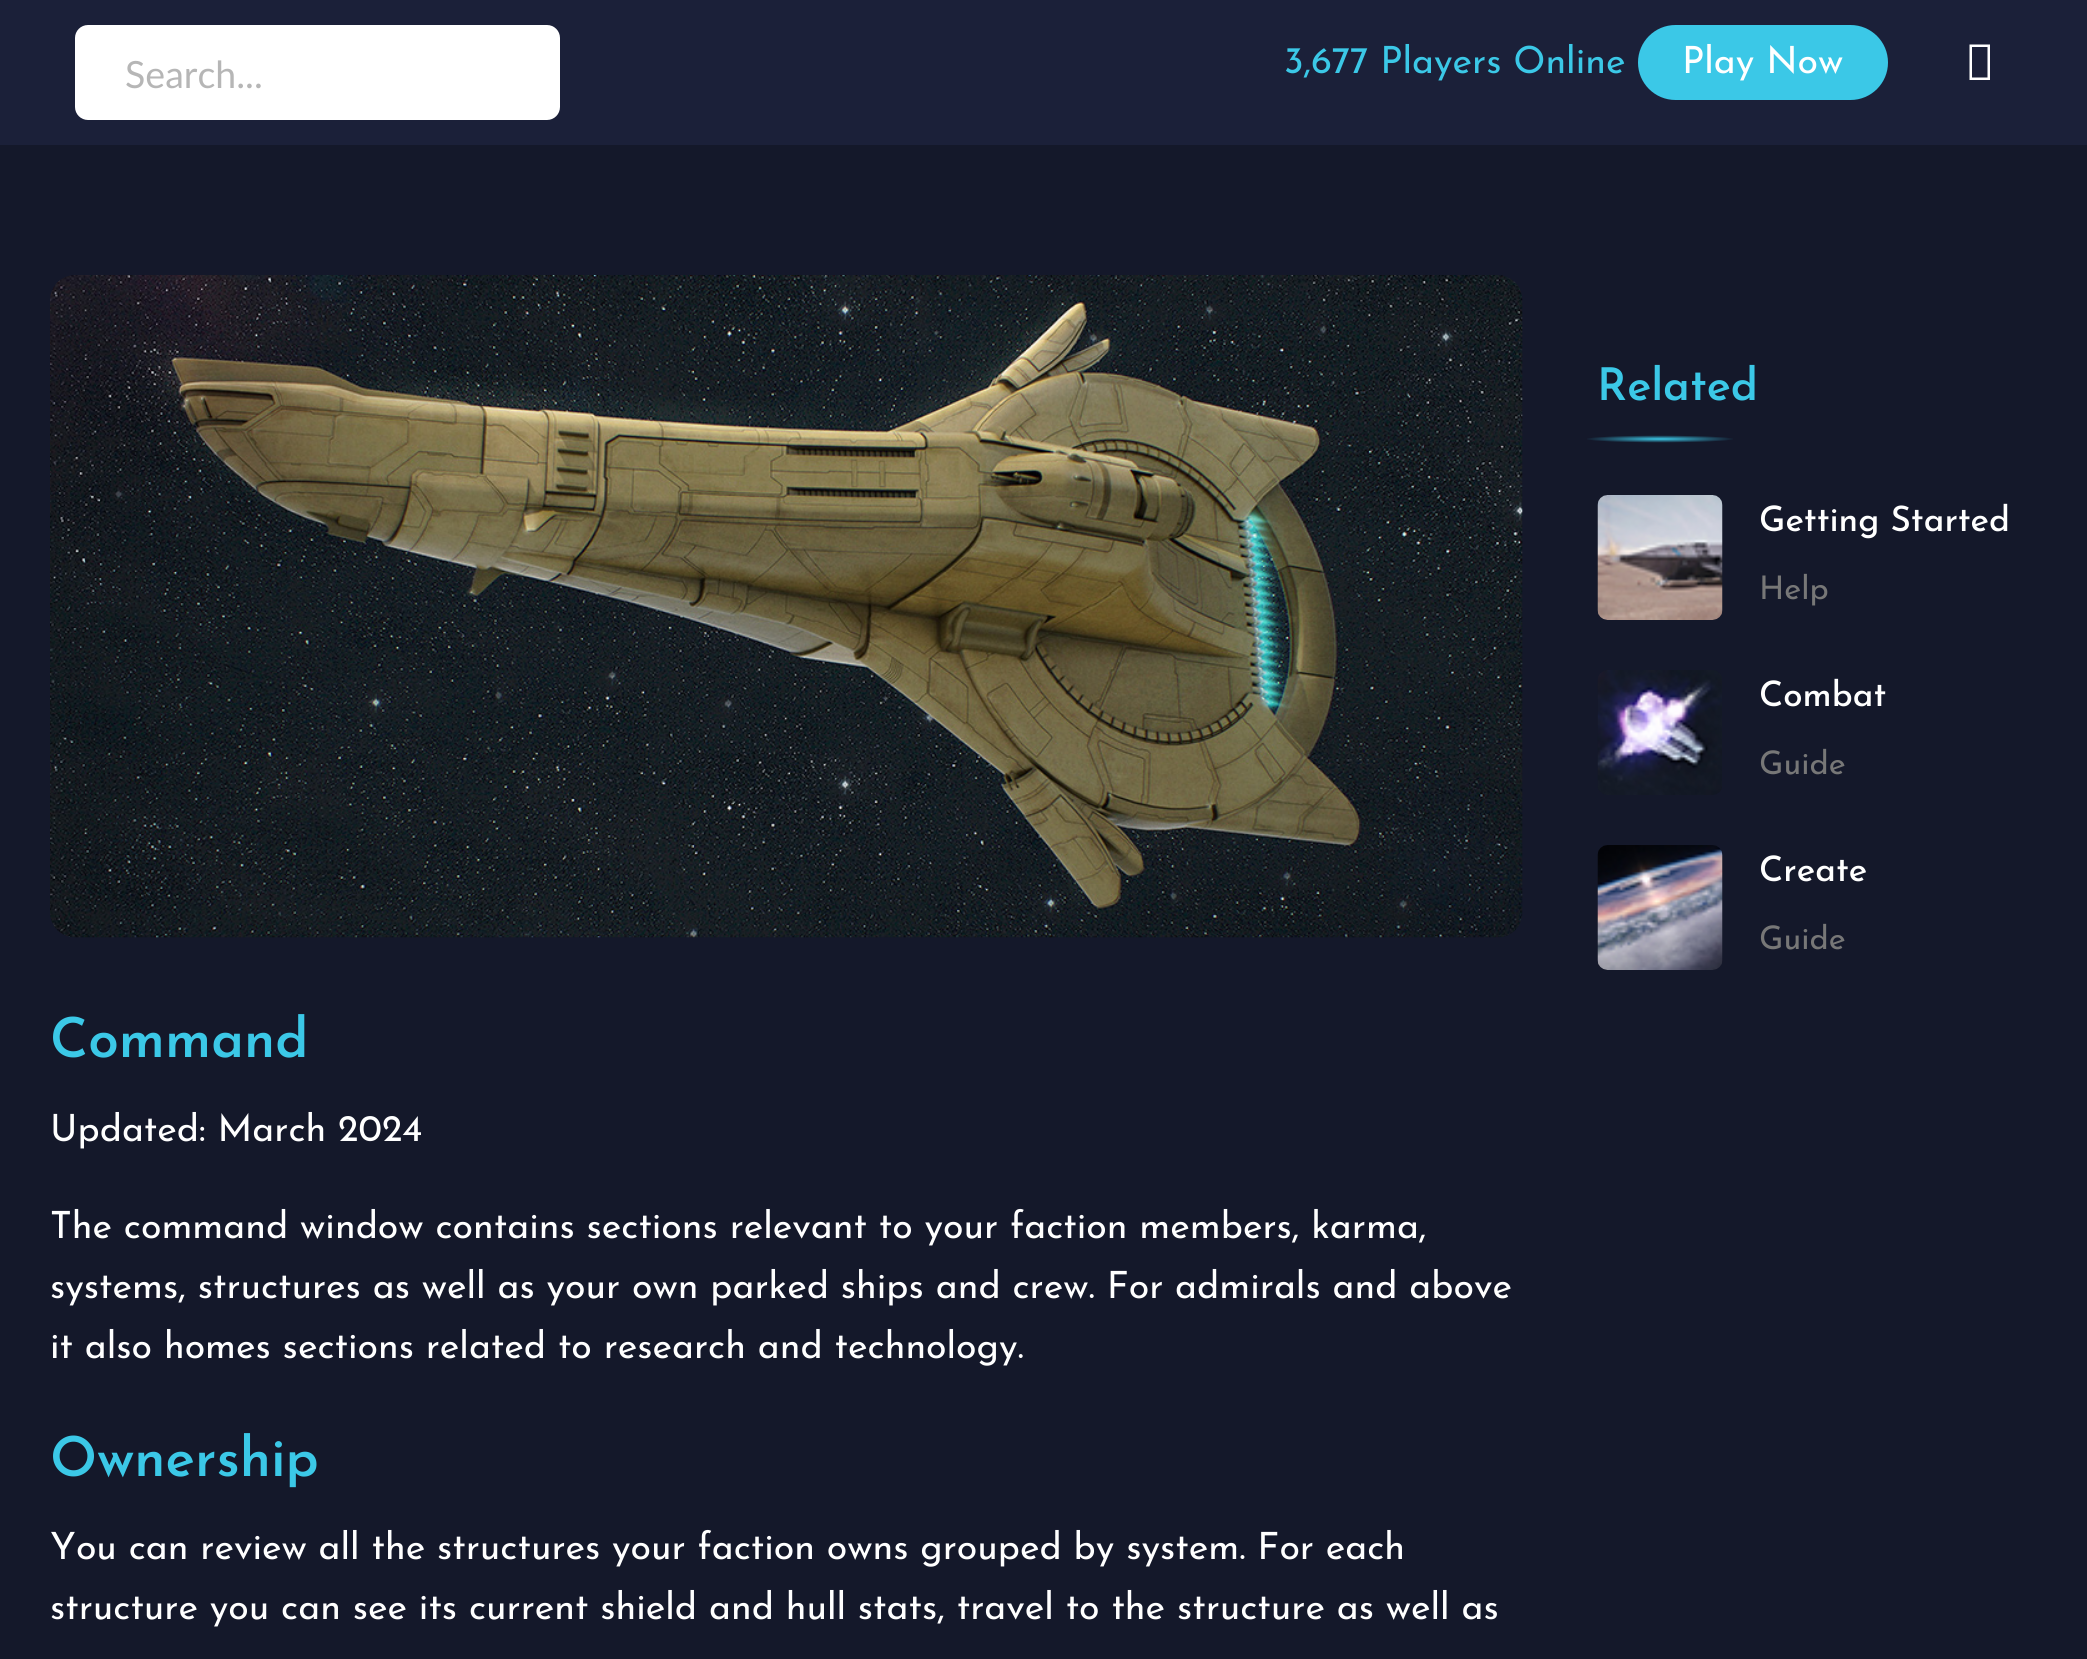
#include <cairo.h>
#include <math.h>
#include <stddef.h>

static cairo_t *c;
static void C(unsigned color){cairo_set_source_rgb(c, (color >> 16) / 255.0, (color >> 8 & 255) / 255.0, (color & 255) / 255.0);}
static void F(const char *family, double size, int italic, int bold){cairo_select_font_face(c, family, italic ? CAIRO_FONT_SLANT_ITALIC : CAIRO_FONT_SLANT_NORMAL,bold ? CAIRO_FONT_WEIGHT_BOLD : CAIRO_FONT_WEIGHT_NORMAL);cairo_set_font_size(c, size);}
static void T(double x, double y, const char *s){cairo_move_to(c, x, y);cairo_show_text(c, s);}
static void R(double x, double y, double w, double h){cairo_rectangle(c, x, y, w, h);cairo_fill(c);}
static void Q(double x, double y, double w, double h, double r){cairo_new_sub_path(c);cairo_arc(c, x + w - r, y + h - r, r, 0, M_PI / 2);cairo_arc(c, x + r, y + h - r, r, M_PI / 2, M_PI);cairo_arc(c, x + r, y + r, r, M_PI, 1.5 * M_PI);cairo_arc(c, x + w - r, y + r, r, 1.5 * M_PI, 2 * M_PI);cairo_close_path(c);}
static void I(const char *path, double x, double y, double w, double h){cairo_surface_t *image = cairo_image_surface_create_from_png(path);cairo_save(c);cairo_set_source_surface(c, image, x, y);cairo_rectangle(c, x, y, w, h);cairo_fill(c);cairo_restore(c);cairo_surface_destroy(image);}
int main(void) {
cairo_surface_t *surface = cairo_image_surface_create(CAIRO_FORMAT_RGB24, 2087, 1659);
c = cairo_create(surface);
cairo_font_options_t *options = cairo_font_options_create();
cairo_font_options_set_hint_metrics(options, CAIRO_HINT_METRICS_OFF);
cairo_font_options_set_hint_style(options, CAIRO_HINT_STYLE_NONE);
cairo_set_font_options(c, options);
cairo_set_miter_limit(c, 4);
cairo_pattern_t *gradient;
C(0x14182a);
cairo_paint(c);
C(0x1b2039);
R(0,0,2087,145);
C(0xffffff);
Q(75,25,485,95,13);
cairo_fill(c);
F("Lato",37.5,0,0);
C(0xb6b6b6);
T(125,88,"Search...");
F("Josefin Sans",37.5,0,0);
C(0x3bc8e7);
T(1284,73,"3,677 Players Online");
Q(1638,25,250,75,37.5);
cairo_fill(c);
C(0xffffff);
T(1682,73,"Play Now");
F("Josefin Sans SemiBold",45,0,0);
C(0x3bc8e7);
T(1597,400,"Related");
gradient = cairo_pattern_create_radial(0,0,0,0,0,1);
cairo_pattern_set_matrix(gradient, &(cairo_matrix_t){1.0 / 125, 0, 0, 1.0 / 6.2, -1.0 * 1660 / 125, -1.0 * 439 / 6.2});
cairo_pattern_add_color_stop_rgba(gradient,0,0.231,0.784,0.906,1);
cairo_pattern_add_color_stop_rgba(gradient,.6,0.078,0.094,0.165,1);
cairo_set_source(c,gradient);
cairo_pattern_destroy(gradient);
R(1587,435,146,8);
I("1.png",1597,495,126,125);
F("Josefin Sans Medium",35,0,0);
C(0xffffff);
T(1759,531,"Getting Started");
F("Josefin Sans",32.5,0,0);
C(0x777777);
T(1759,599,"Help");
I("2.png",1597,670,125,125);
F("Josefin Sans Medium",35,0,0);
C(0xffffff);
T(1759,706,"Combat");
F("Josefin Sans",32.5,0,0);
C(0x777777);
T(1759,774,"Guide");
I("3.png",1597,845,126,125);
F("Josefin Sans Medium",35,0,0);
C(0xffffff);
T(1759,881,"Create");
F("Josefin Sans",32.5,0,0);
C(0x777777);
T(1759,949,"Guide");
I("4.png",50,275,1473,663);
F("Josefin Sans SemiBold",55,0,0);
C(0x3bc8e7);
T(50,1057,"Command");
F("Josefin Sans",37.5,0,0);
C(0xffffff);
T(50,1141,"Updated: March 2024");
T(50,1238,"The command window contains sections relevant to your faction members, karma,");
T(50,1298,"systems, structures as well as your own parked ships and crew. For admirals and above");
T(50,1358,"it also homes sections related to research and technology.");
F("Josefin Sans SemiBold",55,0,0);
C(0x3bc8e7);
T(50,1476,"Ownership");
F("Josefin Sans",37.5,0,0);
C(0xffffff);
T(50,1559,"You can review all the structures your faction owns grouped by system. For each");
T(50,1619,"structure you can see its current shield and hull stats, travel to the structure as well as");
cairo_new_path(c);
cairo_move_to(c,1969.5,80);
cairo_line_to(c,1969.5,44.5);
cairo_line_to(c,1990,44.5);
cairo_line_to(c,1990,80);
cairo_close_path(c);
cairo_move_to(c,1972,77.5);
cairo_line_to(c,1987.5,77.5);
cairo_line_to(c,1987.5,47);
cairo_line_to(c,1972,47);
cairo_close_path(c);
cairo_fill(c);
cairo_surface_write_to_png(surface, "o.png");
cairo_font_options_destroy(options);
cairo_destroy(c);
cairo_surface_destroy(surface);
return 0;
}
